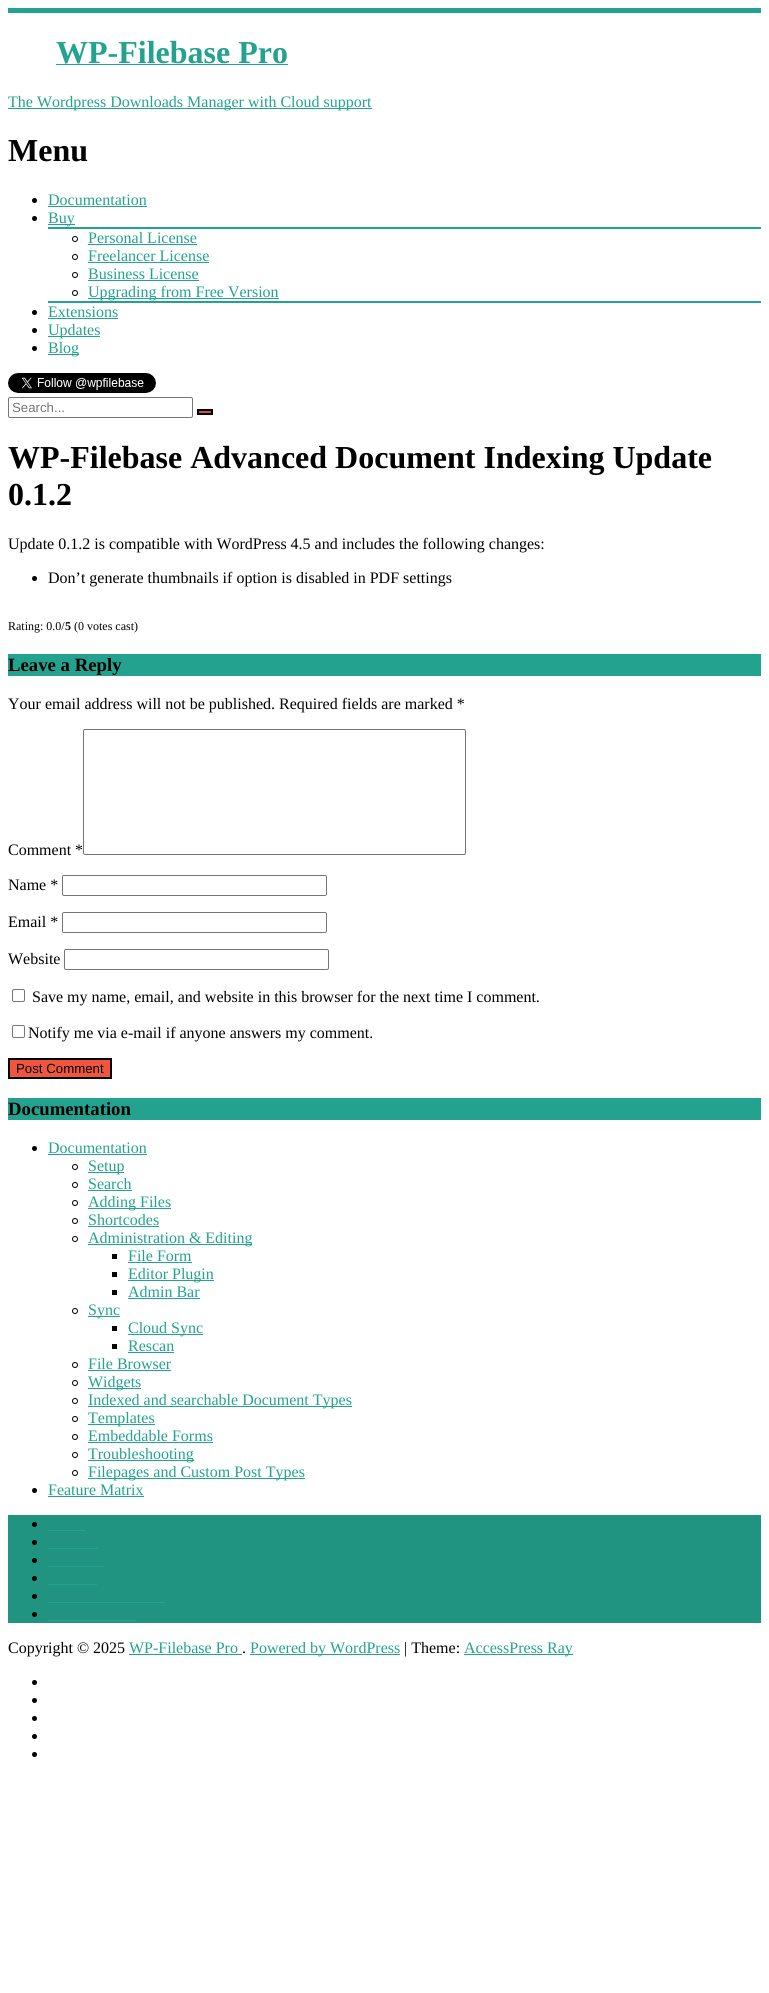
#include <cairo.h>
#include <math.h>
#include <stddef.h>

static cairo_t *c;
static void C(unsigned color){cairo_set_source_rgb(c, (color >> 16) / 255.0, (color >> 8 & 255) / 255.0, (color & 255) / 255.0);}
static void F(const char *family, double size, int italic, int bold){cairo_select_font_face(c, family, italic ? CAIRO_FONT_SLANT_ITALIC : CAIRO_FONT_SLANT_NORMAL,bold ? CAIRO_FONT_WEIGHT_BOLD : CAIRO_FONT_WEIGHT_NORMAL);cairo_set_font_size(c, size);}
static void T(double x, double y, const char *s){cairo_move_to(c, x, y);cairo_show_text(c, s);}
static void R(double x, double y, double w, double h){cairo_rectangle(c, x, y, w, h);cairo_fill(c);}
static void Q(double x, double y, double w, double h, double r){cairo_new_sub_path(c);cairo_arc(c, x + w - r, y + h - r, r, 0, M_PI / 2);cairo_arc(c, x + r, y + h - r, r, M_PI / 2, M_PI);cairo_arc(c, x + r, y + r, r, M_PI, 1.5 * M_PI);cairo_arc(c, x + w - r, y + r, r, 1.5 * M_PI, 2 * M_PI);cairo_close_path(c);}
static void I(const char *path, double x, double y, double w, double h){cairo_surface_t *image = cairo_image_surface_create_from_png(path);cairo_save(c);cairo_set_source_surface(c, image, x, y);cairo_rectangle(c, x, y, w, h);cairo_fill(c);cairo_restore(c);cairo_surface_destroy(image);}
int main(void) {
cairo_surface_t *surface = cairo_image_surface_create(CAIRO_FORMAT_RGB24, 769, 1993);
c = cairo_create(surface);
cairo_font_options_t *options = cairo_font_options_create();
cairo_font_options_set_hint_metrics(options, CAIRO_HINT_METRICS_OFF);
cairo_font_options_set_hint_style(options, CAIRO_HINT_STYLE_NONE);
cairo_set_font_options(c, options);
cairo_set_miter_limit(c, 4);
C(0xffffff);
cairo_paint(c);
C(0x23a38f);
R(8,8,753,5);
F("Liberation Serif",32,0,1);
T(56,63,"WP-Filebase Pro");
R(56,64,232,1);
R(8,108,364,1);
F("Liberation Serif",16,0,0);
T(8,107,"The Wordpress Downloads Manager with Cloud support");
F("Liberation Serif",32,0,1);
C(0x000000);
T(8,161,"Menu");
cairo_new_path(c);
cairo_arc(c,34.5,200.5,2.5,0,2 * M_PI);
cairo_fill(c);
F("Liberation Serif",16,0,0);
C(0x23a38f);
T(48,205,"Documentation");
R(48,206,99,1);
C(0x000000);
cairo_new_path(c);
cairo_arc(c,34.5,218.5,2.5,0,2 * M_PI);
cairo_fill(c);
C(0x23a38f);
R(48,224,27,1);
T(48,223,"Buy");
R(48,227,713,2);
R(48,301,713,2);
cairo_new_path(c);
cairo_arc(c,75,239,2.5,0,2 * M_PI);
C(0x000000);
cairo_set_line_width(c,1);
cairo_stroke(c);
C(0x23a38f);
T(88,243,"Personal License");
R(88,244,109,1);
cairo_new_path(c);
cairo_arc(c,75,257,2.5,0,2 * M_PI);
C(0x000000);
cairo_stroke(c);
C(0x23a38f);
T(88,261,"Freelancer License");
R(88,262,121,1);
cairo_new_path(c);
cairo_arc(c,75,275,2.5,0,2 * M_PI);
C(0x000000);
cairo_stroke(c);
C(0x23a38f);
T(88,279,"Business License");
R(88,280,111,1);
cairo_new_path(c);
cairo_arc(c,75,293,2.5,0,2 * M_PI);
C(0x000000);
cairo_stroke(c);
C(0x23a38f);
R(88,298,191,1);
T(88,297,"Upgrading from Free Version");
C(0x000000);
cairo_new_path(c);
cairo_arc(c,34.5,312.5,2.5,0,2 * M_PI);
cairo_fill(c);
C(0x23a38f);
T(48,317,"Extensions");
R(48,318,70,1);
C(0x000000);
cairo_new_path(c);
cairo_arc(c,34.5,330.5,2.5,0,2 * M_PI);
cairo_fill(c);
C(0x23a38f);
R(48,336,52,1);
T(48,335,"Updates");
C(0x000000);
cairo_new_path(c);
cairo_arc(c,34.5,348.5,2.5,0,2 * M_PI);
cairo_fill(c);
C(0x23a38f);
R(48,354,31,1);
T(48,353,"Blog");
I("1.png",8,373,148,20);
Q(8.5,397.5,184,20,1.5);
C(0x767676);
cairo_stroke(c);
F("Liberation Sans",13.25,0,0);
C(0x757575);
T(12,412,"Search...");
C(0xd84d37);
cairo_rectangle(c,198,410,14,4);
cairo_fill_preserve(c);
C(0x000000);
cairo_set_line_width(c,2);
cairo_stroke(c);
F("Liberation Serif",32,0,1);
T(8,468,"WP-Filebase Advanced Document Indexing Update");
T(8,505,"0.1.2");
F("Liberation Serif",16,0,0);
T(8,549,"Update 0.1.2 is compatible with WordPress 4.5 and includes the following changes:");
cairo_new_path(c);
cairo_arc(c,34.5,578.5,2.5,0,2 * M_PI);
cairo_fill(c);
T(48,583,"Don’t generate thumbnails if option is disabled in PDF settings");
F("Liberation Serif",12,0,0);
T(8,630,"Rating: 0.0/");
F("Liberation Serif",12,0,1);
T(65,630,"5");
F("Liberation Serif",12,0,0);
T(74,630,"(0 votes cast)");
C(0x23a38f);
R(8,654,753,22);
F("Liberation Serif",18.75,0,1);
C(0x000000);
T(8,671,"Leave a Reply");
F("Liberation Serif",16,0,0);
T(8,709,"Your email address will not be published. Required fields are marked *");
T(8,855,"Comment *");
Q(83.5,729.5,382,125,1.5);
C(0x767676);
cairo_set_line_width(c,1);
cairo_stroke(c);
C(0x000000);
T(8,890,"Name *");
Q(62.5,875.5,264,20,1.5);
C(0x767676);
cairo_stroke(c);
C(0x000000);
T(8,927,"Email *");
Q(62.5,912.5,264,20,1.5);
C(0x767676);
cairo_stroke(c);
C(0x000000);
T(8,964,"Website");
Q(64.5,949.5,264,20,1.5);
C(0x767676);
cairo_stroke(c);
Q(12.5,989.5,12,12,1.5);
cairo_stroke(c);
C(0x000000);
T(32,1002,"Save my name, email, and website in this browser for the next time I comment.");
Q(12.5,1025.5,12,12,1.5);
C(0x767676);
cairo_stroke(c);
C(0x000000);
T(28,1038,"Notify me via e-mail if anyone answers my comment.");
C(0xf0563d);
cairo_rectangle(c,9,1059,102,19);
cairo_fill_preserve(c);
C(0x000000);
cairo_set_line_width(c,2);
cairo_stroke(c);
F("Liberation Sans",13.25,0,0);
T(16,1073,"Post Comment");
C(0x23a38f);
R(8,1098,753,22);
F("Liberation Serif",18.75,0,1);
C(0x000000);
T(8,1115,"Documentation");
cairo_new_path(c);
cairo_arc(c,34.5,1148.5,2.5,0,2 * M_PI);
cairo_fill(c);
F("Liberation Serif",16,0,0);
C(0x23a38f);
T(48,1153,"Documentation");
R(48,1154,99,1);
cairo_new_path(c);
cairo_arc(c,75,1167,2.5,0,2 * M_PI);
C(0x000000);
cairo_set_line_width(c,1);
cairo_stroke(c);
C(0x23a38f);
R(88,1172,36,1);
T(88,1171,"Setup");
cairo_new_path(c);
cairo_arc(c,75,1185,2.5,0,2 * M_PI);
C(0x000000);
cairo_stroke(c);
C(0x23a38f);
T(88,1189,"Search");
R(88,1190,44,1);
cairo_new_path(c);
cairo_arc(c,75,1203,2.5,0,2 * M_PI);
C(0x000000);
cairo_stroke(c);
C(0x23a38f);
R(88,1208,83,1);
T(88,1207,"Adding Files");
cairo_new_path(c);
cairo_arc(c,75,1221,2.5,0,2 * M_PI);
C(0x000000);
cairo_stroke(c);
C(0x23a38f);
T(88,1225,"Shortcodes");
R(88,1226,71,1);
cairo_new_path(c);
cairo_arc(c,75,1239,2.5,0,2 * M_PI);
C(0x000000);
cairo_stroke(c);
C(0x23a38f);
R(88,1244,164,1);
T(88,1243,"Administration & Editing");
C(0x000000);
R(112,1254,5,5);
C(0x23a38f);
T(128,1261,"File Form");
R(128,1262,64,1);
C(0x000000);
R(112,1272,5,5);
C(0x23a38f);
R(128,1280,86,1);
T(128,1279,"Editor Plugin");
C(0x000000);
R(112,1290,5,5);
C(0x23a38f);
T(128,1297,"Admin Bar");
R(128,1298,72,1);
cairo_new_path(c);
cairo_arc(c,75,1311,2.5,0,2 * M_PI);
C(0x000000);
cairo_stroke(c);
C(0x23a38f);
R(88,1316,32,1);
T(88,1315,"Sync");
C(0x000000);
R(112,1326,5,5);
C(0x23a38f);
R(128,1334,75,1);
T(128,1333,"Cloud Sync");
C(0x000000);
R(112,1344,5,5);
C(0x23a38f);
T(128,1351,"Rescan");
R(128,1352,46,1);
cairo_new_path(c);
cairo_arc(c,75,1365,2.5,0,2 * M_PI);
C(0x000000);
cairo_stroke(c);
C(0x23a38f);
T(88,1369,"File Browser");
R(88,1370,83,1);
cairo_new_path(c);
cairo_arc(c,75,1383,2.5,0,2 * M_PI);
C(0x000000);
cairo_stroke(c);
C(0x23a38f);
R(88,1388,53,1);
T(88,1387,"Widgets");
cairo_new_path(c);
cairo_arc(c,75,1401,2.5,0,2 * M_PI);
C(0x000000);
cairo_stroke(c);
C(0x23a38f);
R(88,1406,264,1);
T(88,1405,"Indexed and searchable Document Types");
cairo_new_path(c);
cairo_arc(c,75,1419,2.5,0,2 * M_PI);
C(0x000000);
cairo_stroke(c);
C(0x23a38f);
R(88,1424,67,1);
T(88,1423,"Templates");
cairo_new_path(c);
cairo_arc(c,75,1437,2.5,0,2 * M_PI);
C(0x000000);
cairo_stroke(c);
C(0x23a38f);
T(88,1441,"Embeddable Forms");
R(88,1442,125,1);
cairo_new_path(c);
cairo_arc(c,75,1455,2.5,0,2 * M_PI);
C(0x000000);
cairo_stroke(c);
C(0x23a38f);
R(88,1460,106,1);
T(88,1459,"Troubleshooting");
cairo_new_path(c);
cairo_arc(c,75,1473,2.5,0,2 * M_PI);
C(0x000000);
cairo_stroke(c);
C(0x23a38f);
R(88,1478,217,1);
T(88,1477,"Filepages and Custom Post Types");
C(0x000000);
cairo_new_path(c);
cairo_arc(c,34.5,1490.5,2.5,0,2 * M_PI);
cairo_fill(c);
C(0x23a38f);
T(48,1495,"Feature Matrix");
R(48,1496,96,1);
C(0x209381);
R(8,1515,753,108);
C(0x000000);
cairo_new_path(c);
cairo_arc(c,34.5,1524.5,2.5,0,2 * M_PI);
cairo_fill(c);
C(0x23a38f);
R(48,1530,38,1);
C(0x000000);
cairo_arc(c,34.5,1542.5,2.5,0,2 * M_PI);
cairo_fill(c);
C(0x23a38f);
R(48,1548,50,1);
C(0x000000);
cairo_arc(c,34.5,1560.5,2.5,0,2 * M_PI);
cairo_fill(c);
C(0x23a38f);
R(48,1566,56,1);
C(0x000000);
cairo_arc(c,34.5,1578.5,2.5,0,2 * M_PI);
cairo_fill(c);
C(0x23a38f);
R(48,1584,49,1);
C(0x000000);
cairo_arc(c,34.5,1596.5,2.5,0,2 * M_PI);
cairo_fill(c);
C(0x23a38f);
R(48,1602,117,1);
C(0x000000);
cairo_arc(c,34.5,1614.5,2.5,0,2 * M_PI);
cairo_fill(c);
C(0x23a38f);
R(48,1620,88,1);
C(0x000000);
T(8,1653,"Copyright © 2025");
C(0x23a38f);
T(129,1653,"WP-Filebase Pro");
R(129,1654,113,1);
C(0x000000);
T(242,1653,".");
C(0x23a38f);
R(250,1654,150,1);
T(250,1653,"Powered by WordPress");
C(0x000000);
T(404,1653,"| Theme:");
C(0x23a38f);
R(464,1654,109,1);
T(464,1653,"AccessPress Ray");
C(0x000000);
cairo_new_path(c);
cairo_arc(c,34.5,1682.5,2.5,0,2 * M_PI);
cairo_fill(c);
cairo_arc(c,34.5,1700.5,2.5,0,2 * M_PI);
cairo_fill(c);
cairo_arc(c,34.5,1718.5,2.5,0,2 * M_PI);
cairo_fill(c);
cairo_arc(c,34.5,1736.5,2.5,0,2 * M_PI);
cairo_fill(c);
cairo_arc(c,34.5,1754.5,2.5,0,2 * M_PI);
cairo_fill(c);
cairo_surface_write_to_png(surface, "o.png");
cairo_font_options_destroy(options);
cairo_destroy(c);
cairo_surface_destroy(surface);
return 0;
}
